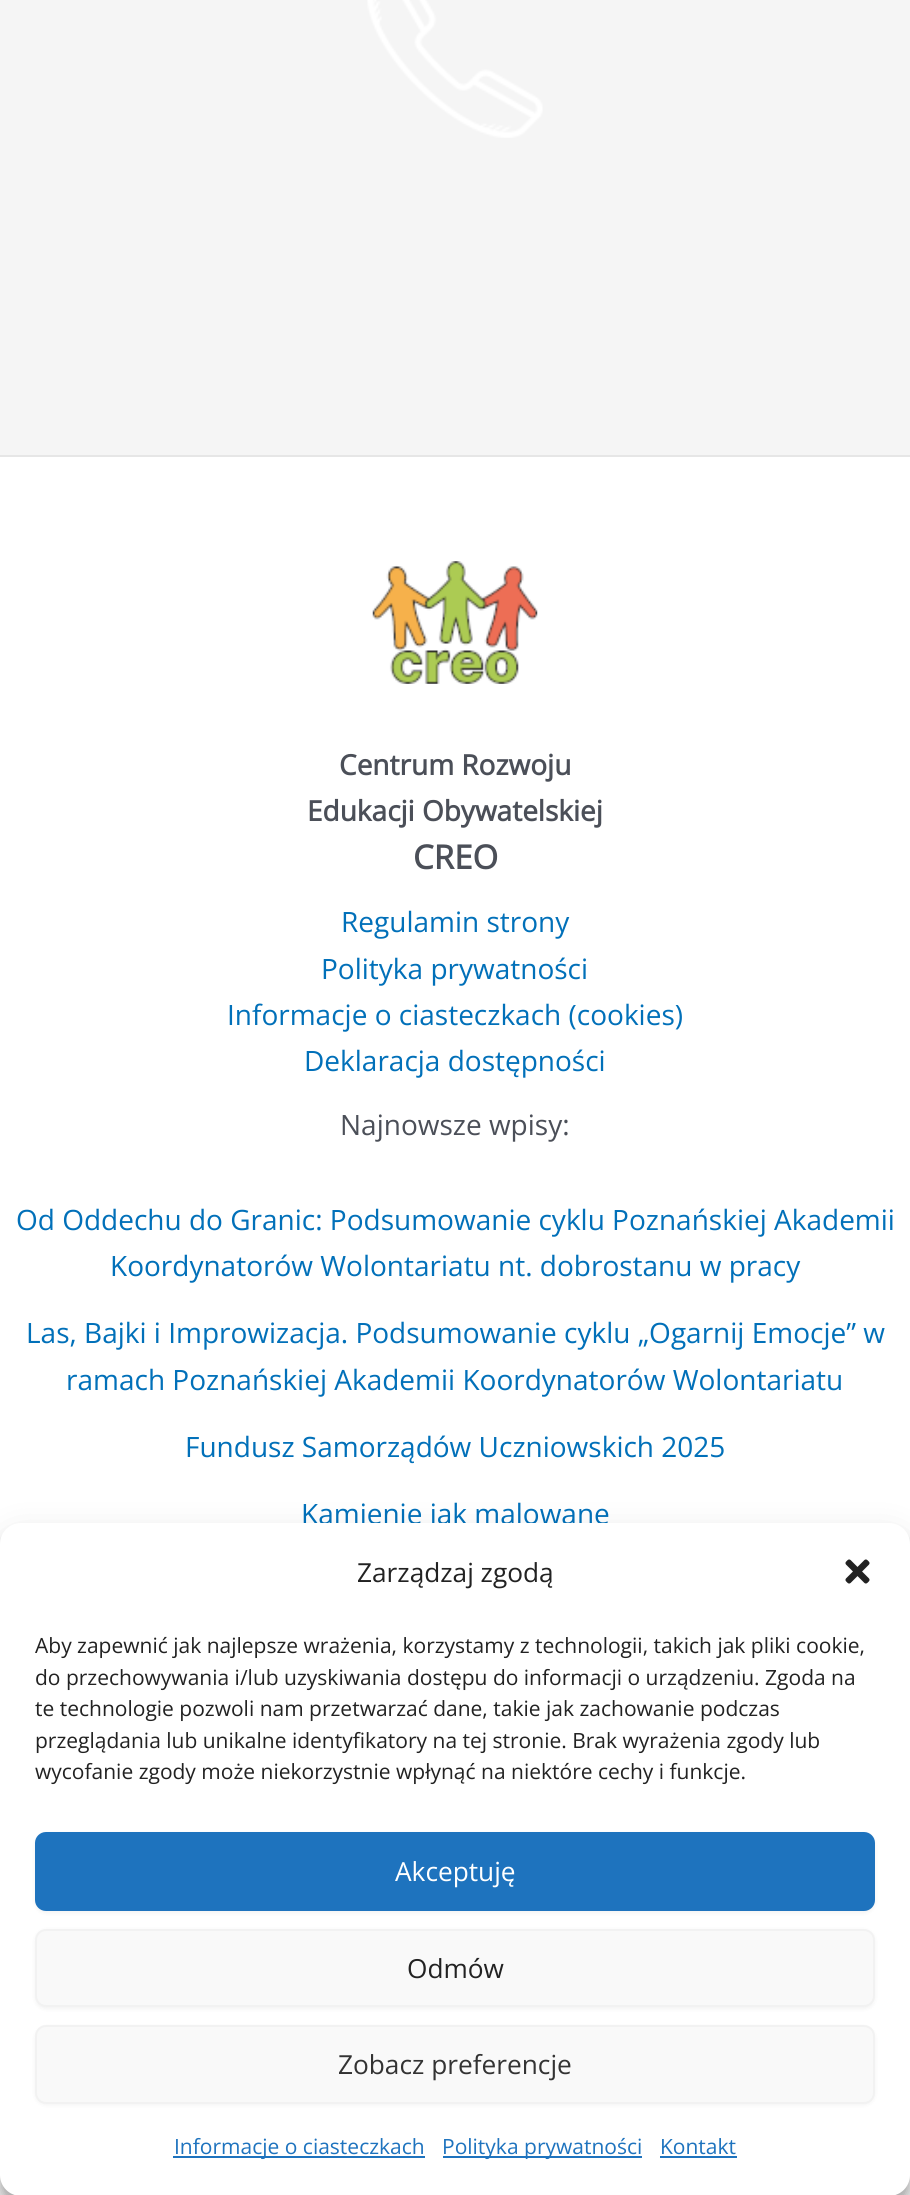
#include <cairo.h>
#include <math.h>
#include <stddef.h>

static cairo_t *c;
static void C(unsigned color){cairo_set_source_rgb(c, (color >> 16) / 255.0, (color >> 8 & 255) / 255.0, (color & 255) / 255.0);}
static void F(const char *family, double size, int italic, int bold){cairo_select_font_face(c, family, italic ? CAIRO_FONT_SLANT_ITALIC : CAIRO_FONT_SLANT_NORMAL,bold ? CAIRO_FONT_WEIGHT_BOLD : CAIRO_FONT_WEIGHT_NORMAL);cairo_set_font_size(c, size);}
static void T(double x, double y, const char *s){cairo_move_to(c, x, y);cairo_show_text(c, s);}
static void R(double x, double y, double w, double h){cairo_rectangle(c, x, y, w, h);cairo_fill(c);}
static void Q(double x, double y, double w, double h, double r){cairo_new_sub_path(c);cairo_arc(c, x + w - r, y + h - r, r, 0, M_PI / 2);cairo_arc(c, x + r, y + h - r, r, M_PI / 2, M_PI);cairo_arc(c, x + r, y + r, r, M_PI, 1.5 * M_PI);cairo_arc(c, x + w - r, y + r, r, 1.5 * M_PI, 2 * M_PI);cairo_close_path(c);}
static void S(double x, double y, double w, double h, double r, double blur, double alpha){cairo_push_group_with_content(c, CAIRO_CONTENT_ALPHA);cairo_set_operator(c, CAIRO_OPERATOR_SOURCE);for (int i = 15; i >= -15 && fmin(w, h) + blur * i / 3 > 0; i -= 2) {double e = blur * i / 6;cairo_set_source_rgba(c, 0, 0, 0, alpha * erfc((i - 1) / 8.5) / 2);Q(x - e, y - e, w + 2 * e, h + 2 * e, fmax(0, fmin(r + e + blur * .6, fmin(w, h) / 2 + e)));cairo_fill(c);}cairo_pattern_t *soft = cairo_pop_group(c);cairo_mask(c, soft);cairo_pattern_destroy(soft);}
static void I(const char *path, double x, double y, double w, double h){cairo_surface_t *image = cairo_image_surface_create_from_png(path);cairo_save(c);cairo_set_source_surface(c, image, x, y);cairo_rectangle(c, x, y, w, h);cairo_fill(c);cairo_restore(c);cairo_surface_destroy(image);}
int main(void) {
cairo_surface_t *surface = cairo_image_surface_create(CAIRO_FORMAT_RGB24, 910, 2195);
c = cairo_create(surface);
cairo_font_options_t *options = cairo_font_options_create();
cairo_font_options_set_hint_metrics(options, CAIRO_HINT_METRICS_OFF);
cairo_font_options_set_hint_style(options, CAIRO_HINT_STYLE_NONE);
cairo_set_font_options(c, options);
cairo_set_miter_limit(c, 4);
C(0xf5f5f5);
cairo_paint(c);
I("1.png",367,0,176,138);
C(0xffffff);
R(0,457,910,1087);
C(0xe6e6e6);
R(0,455,910,2);
I("2.png",372,561,166,123);
F("Open Sans",28,0,1);
C(0x4b4f58);
T(339,775,"Centrum Rozwoju");
T(307,821,"Edukacji Obywatelskiej");
F("Open Sans",33,0,1);
T(413,869,"CREO");
F("Open Sans",28,0,0);
C(0x0170b9);
T(341,932,"Regulamin strony");
T(321,979,"Polityka prywatności");
T(227,1025,"Informacje o ciasteczkach (cookies)");
T(304,1071,"Deklaracja dostępności");
C(0x4b4f58);
T(340,1135,"Najnowsze wpisy:");
C(0x0170b9);
T(16,1230,"Od Oddechu do Granic: Podsumowanie cyklu Poznańskiej Akademii");
T(110,1276,"Koordynatorów Wolontariatu nt. dobrostanu w pracy");
T(26,1343,"Las, Bajki i Improwizacja. Podsumowanie cyklu „Ogarnij Emocje” w");
T(66,1390,"ramach Poznańskiej Akademii Koordynatorów Wolontariatu");
T(185,1457,"Fundusz Samorządów Uczniowskich 2025");
T(301,1524,"Kamienie jak malowane");
C(0xffffff);
R(0,2175,910,20);
C(0x000000);
S(0,1533,910,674,21,5,.23);
S(0,1540,910,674,21,17.5,.19);
C(0xffffff);
Q(0,1523,910,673,21);
cairo_fill(c);
F("Open Sans",26.25,0,0);
C(0x222222);
T(357,1582,"Zarządzaj zgodą");
I("3.png",845,1559,25,25);
F("Open Sans",21,0,0);
T(35,1653,"Aby zapewnić jak najlepsze wrażenia, korzystamy z technologii, takich jak pliki cookie,");
T(35,1685,"do przechowywania i/lub uzyskiwania dostępu do informacji o urządzeniu. Zgoda na");
T(35,1716,"te technologie pozwoli nam przetwarzać dane, takie jak zachowanie podczas");
T(35,1748,"przeglądania lub unikalne identyfikatory na tej stronie. Brak wyrażenia zgody lub");
T(35,1779,"wycofanie zgody może niekorzystnie wpłynąć na niektóre cechy i funkcje.");
C(0x000000);
S(35,1834,840,79,11,2,.05);
C(0x1e73be);
Q(36,1833,838,77,10);
cairo_fill_preserve(c);
cairo_stroke(c);
F("Open Sans",26.25,0,0);
C(0xffffff);
T(395,1881,"Akceptuję");
C(0x000000);
S(35,1930,840,79,11,2,.05);
C(0xf9f9f9);
Q(36,1930,838,76,10);
cairo_fill_preserve(c);
C(0xf2f2f2);
cairo_stroke(c);
C(0x222222);
T(407,1978,"Odmów");
C(0x000000);
S(35,2027,840,78,11,2,.05);
C(0xf9f9f9);
Q(36,2026,838,77,10);
cairo_fill_preserve(c);
C(0xf2f2f2);
cairo_stroke(c);
C(0x333333);
T(338,2074,"Zobacz preferencje");
C(0x1e73be);
R(173,2156,252,2);
F("Open Sans",21,0,0);
T(174,2154,"Informacje o ciasteczkach");
R(443,2156,199,2);
T(442,2154,"Polityka prywatności");
T(660,2154,"Kontakt");
R(660,2156,77,2);
cairo_surface_write_to_png(surface, "o.png");
cairo_font_options_destroy(options);
cairo_destroy(c);
cairo_surface_destroy(surface);
return 0;
}
